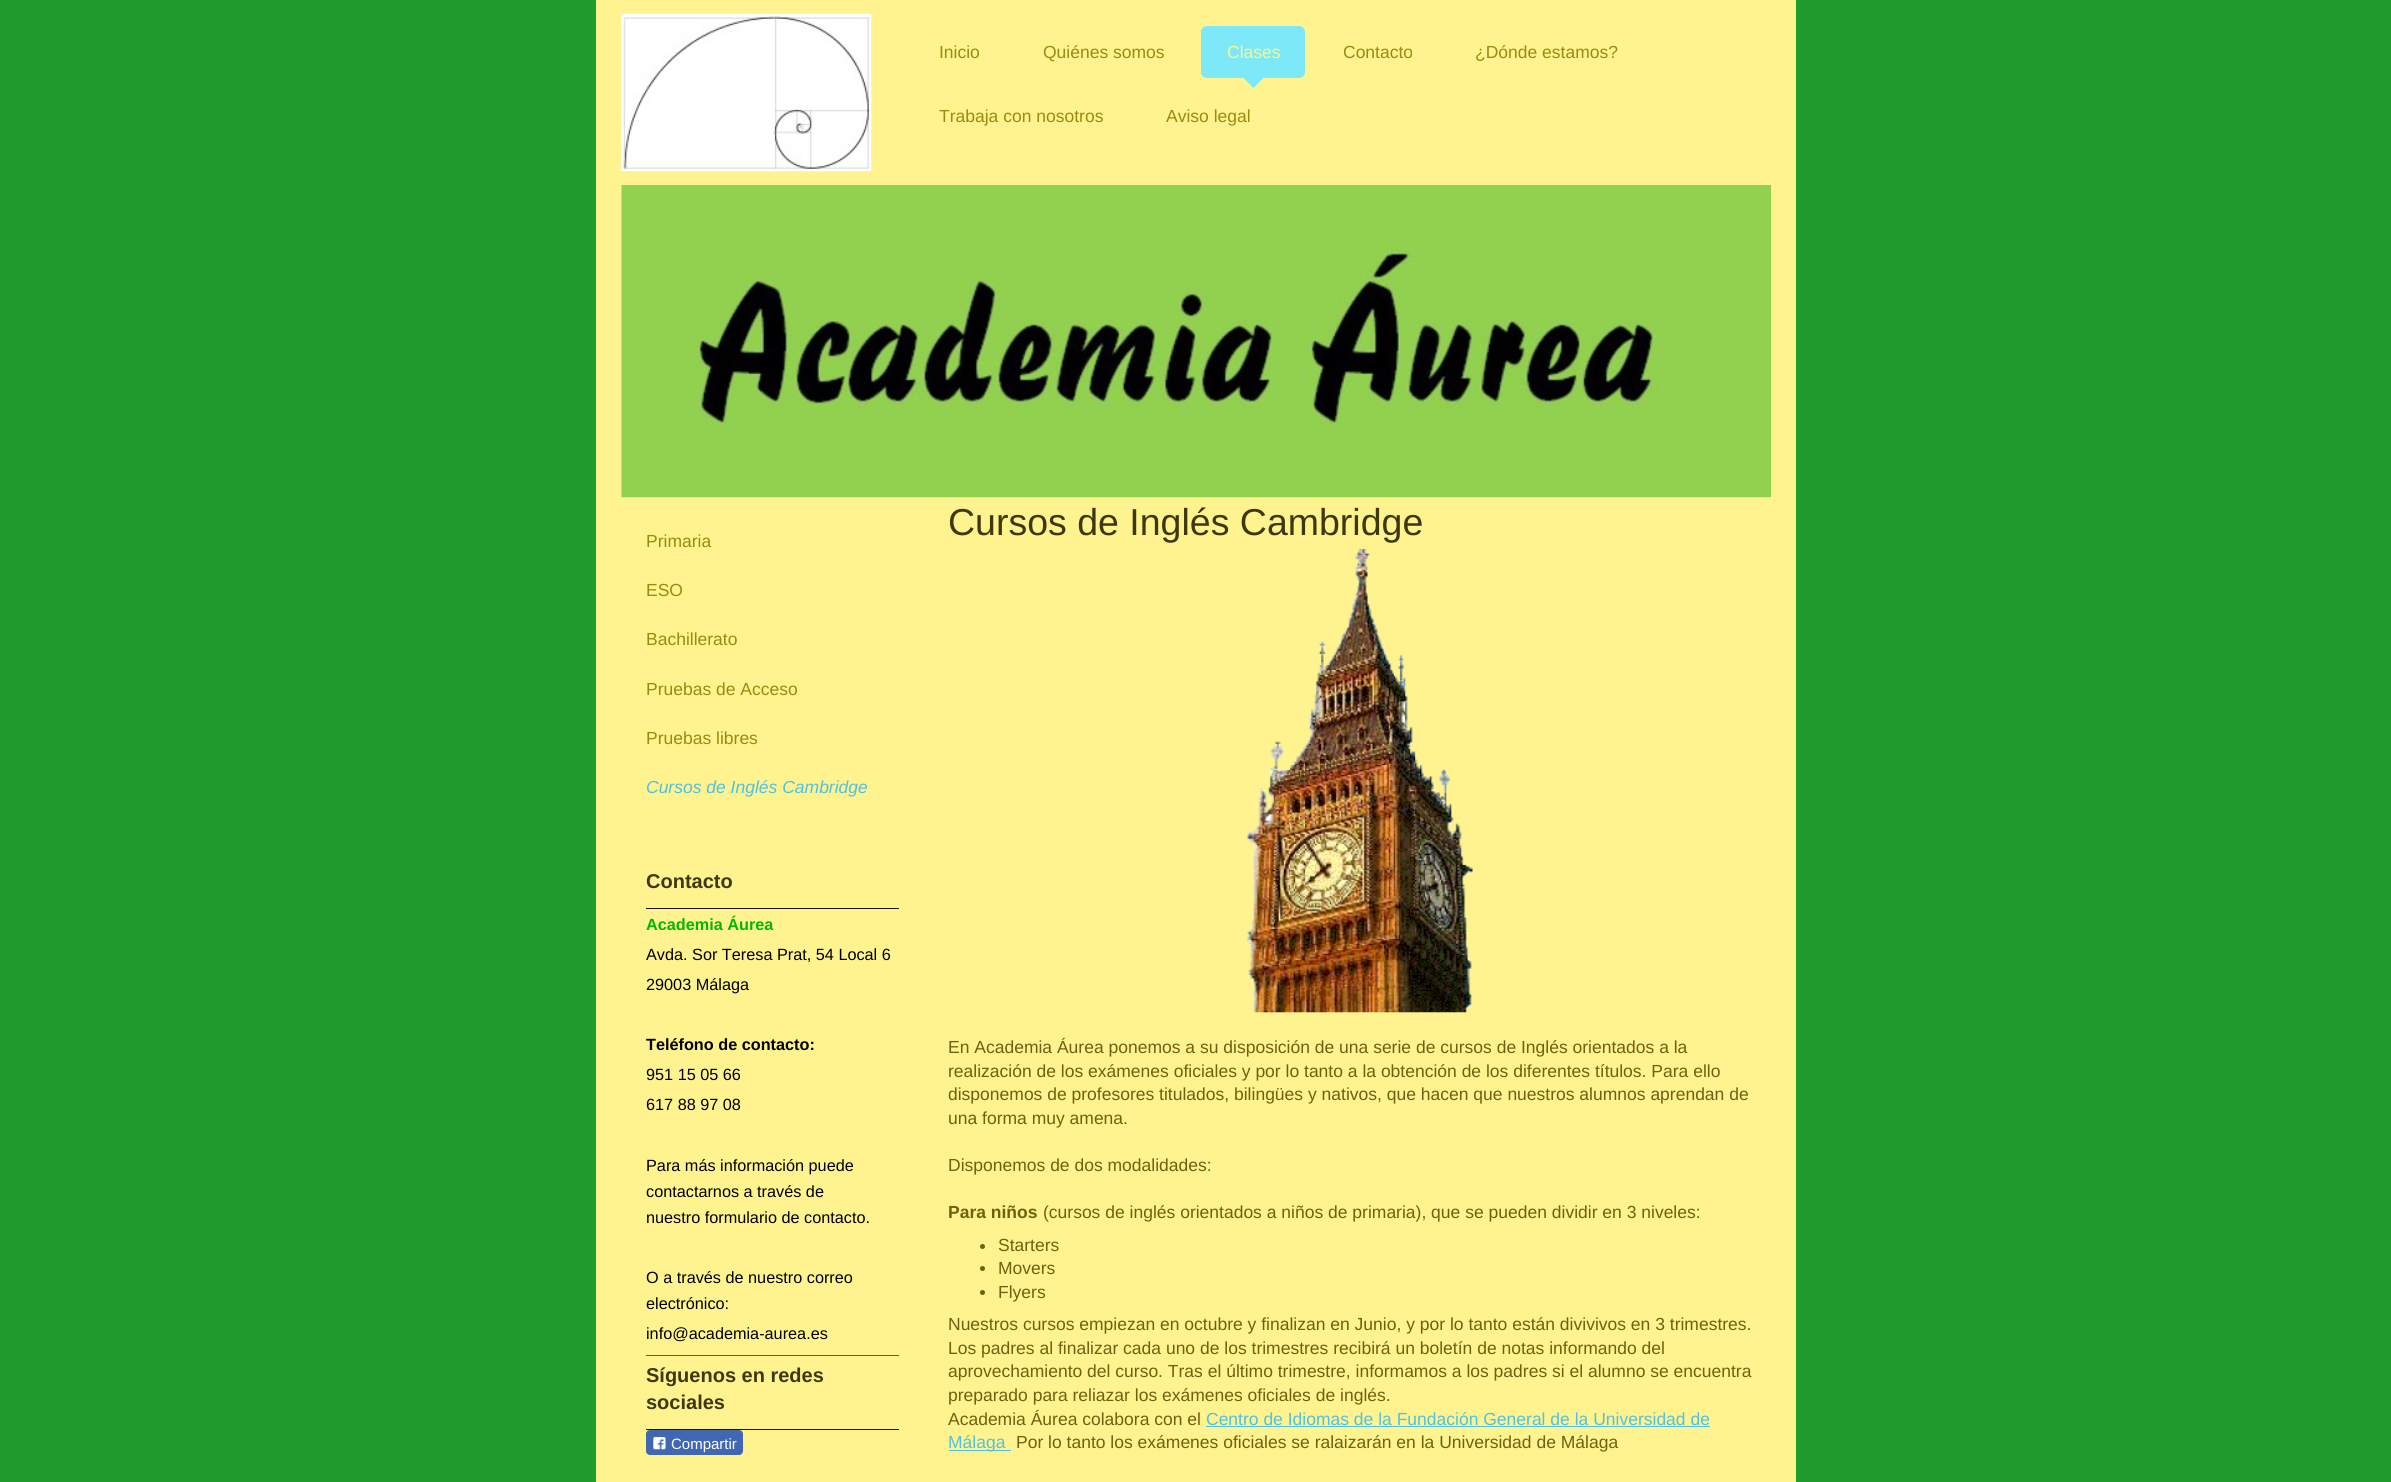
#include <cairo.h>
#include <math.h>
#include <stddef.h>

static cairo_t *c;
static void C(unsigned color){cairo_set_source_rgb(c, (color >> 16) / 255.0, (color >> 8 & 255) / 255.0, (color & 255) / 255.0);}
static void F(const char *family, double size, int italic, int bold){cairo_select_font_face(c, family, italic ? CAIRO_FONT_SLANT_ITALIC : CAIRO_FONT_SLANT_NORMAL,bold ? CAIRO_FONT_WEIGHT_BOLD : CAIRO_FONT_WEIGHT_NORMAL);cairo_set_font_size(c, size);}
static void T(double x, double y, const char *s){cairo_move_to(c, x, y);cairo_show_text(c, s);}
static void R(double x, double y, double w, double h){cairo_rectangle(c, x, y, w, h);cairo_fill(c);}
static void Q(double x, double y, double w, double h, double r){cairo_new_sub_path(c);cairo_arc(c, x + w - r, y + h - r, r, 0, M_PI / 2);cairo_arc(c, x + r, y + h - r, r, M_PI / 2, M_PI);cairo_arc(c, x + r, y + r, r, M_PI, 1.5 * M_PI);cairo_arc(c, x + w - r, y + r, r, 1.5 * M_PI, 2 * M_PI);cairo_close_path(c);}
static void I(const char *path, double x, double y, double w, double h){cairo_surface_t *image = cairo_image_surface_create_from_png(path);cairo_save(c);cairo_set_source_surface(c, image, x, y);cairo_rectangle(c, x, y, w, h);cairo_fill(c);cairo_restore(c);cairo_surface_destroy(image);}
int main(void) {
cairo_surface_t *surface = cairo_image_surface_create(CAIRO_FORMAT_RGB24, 2391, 1482);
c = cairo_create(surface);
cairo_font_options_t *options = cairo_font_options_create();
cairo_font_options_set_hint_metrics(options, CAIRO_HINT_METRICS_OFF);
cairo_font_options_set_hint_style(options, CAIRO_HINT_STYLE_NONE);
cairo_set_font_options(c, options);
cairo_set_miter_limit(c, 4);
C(0x1e9b2b);
cairo_paint(c);
C(0xfef38f);
R(596,0,1200,1482);
I("1.png",621,13,251,159);
F("Liberation Sans",17.5,0,0);
C(0x988b0f);
T(939,58,"Inicio");
T(1043,58,"Quiénes somos");
C(0x7de9f8);
Q(1201,26,104,52,6);
cairo_fill(c);
C(0xfef38f);
T(1227,58,"Clases");
C(0x7de9f8);
cairo_new_path(c);
cairo_move_to(c,1241,75.5);
cairo_line_to(c,1266,75.5);
cairo_line_to(c,1253.5,88);
cairo_close_path(c);
cairo_fill(c);
C(0x988b0f);
T(1343,58,"Contacto");
T(1475,58,"¿Dónde estamos?");
T(939,122,"Trabaja con nosotros");
T(1166,122,"Aviso legal");
C(0xeeeeee);
R(621,185,1150,313);
I("2.png",621,185,1151,313);
C(0x988b0f);
T(646,547,"Primaria");
T(646,596,"ESO");
T(646,645,"Bachillerato");
T(646,695,"Pruebas de Acceso");
T(646,744,"Pruebas libres");
F("Liberation Sans",17.5,1,0);
C(0x4fc1e5);
T(646,793,"Cursos de Inglés Cambridge");
C(0x19180e);
R(646,908,253,1);
F("Liberation Sans",20,0,1);
C(0x3d380f);
T(646,888,"Contacto");
F("Liberation Sans",16.25,0,1);
C(0x02b804);
T(646,930,"Academia Áurea");
F("Liberation Sans",16.25,0,0);
C(0x000000);
T(646,960,"Avda. Sor Teresa Prat, 54 Local 6");
T(646,990,"29003 Málaga");
F("Liberation Sans",16.25,0,1);
T(646,1050,"Teléfono de contacto:");
F("Liberation Sans",16.25,0,0);
T(646,1080,"951 15 05 66");
T(646,1110,"617 88 97 08");
T(646,1171,"Para más información puede");
T(646,1197,"contactarnos a través de");
T(646,1223,"nuestro formulario de contacto.");
T(646,1283,"O a través de nuestro correo");
T(646,1309,"electrónico:");
T(646,1339,"info@academia-aurea.es");
C(0x1a7490);
R(646,1355,253,1);
C(0x19180e);
R(646,1429,253,1);
F("Liberation Sans",20,0,1);
C(0x3d380f);
T(646,1382,"Síguenos en redes");
T(646,1409,"sociales");
C(0x4267b2);
Q(646,1430,97,25,4);
cairo_fill(c);
I("3.png",653,1437,13,13);
F("Liberation Sans",15,0,0);
C(0xffffff);
T(671,1449,"Compartir");
F("Liberation Sans",37.5,0,0);
C(0x3d380f);
T(948,535,"Cursos de Inglés Cambridge");
I("4.png",1247,548,226,465);
F("Liberation Sans",17.5,0,0);
C(0x6b620f);
T(948,1053,"En Academia Áurea ponemos a su disposición de una serie de cursos de Inglés orientados a la");
T(948,1077,"realización de los exámenes oficiales y por lo tanto a la obtención de los diferentes títulos. Para ello");
T(948,1100,"disponemos de profesores titulados, bilingües y nativos, que hacen que nuestros alumnos aprendan de");
T(948,1124,"una forma muy amena.");
T(948,1171,"Disponemos de dos modalidades:");
F("Liberation Sans",17.5,0,1);
T(948,1218,"Para niños");
F("Liberation Sans",17.5,0,0);
T(1043,1218,"(cursos de inglés orientados a niños de primaria), que se pueden dividir en 3 niveles:");
cairo_new_path(c);
cairo_arc(c,982.5,1246.5,2.5,0,2 * M_PI);
cairo_fill(c);
T(998,1251,"Starters");
cairo_new_path(c);
cairo_arc(c,982.5,1268.5,2.5,0,2 * M_PI);
cairo_fill(c);
T(998,1274,"Movers");
cairo_new_path(c);
cairo_arc(c,982.5,1292.5,2.5,0,2 * M_PI);
cairo_fill(c);
T(998,1298,"Flyers");
T(948,1330,"Nuestros cursos empiezan en octubre y finalizan en Junio, y por lo tanto están divivivos en 3 trimestres.");
T(948,1354,"Los padres al finalizar cada uno de los trimestres recibirá un boletín de notas informando del");
T(948,1377,"aprovechamiento del curso. Tras el último trimestre, informamos a los padres si el alumno se encuentra");
T(948,1401,"preparado para reliazar los exámenes oficiales de inglés.");
T(948,1425,"Academia Áurea colabora con el");
C(0x4fc1e5);
T(1206,1425,"Centro de Idiomas de la Fundación General de la Universidad de");
R(1206,1426,504,1);
R(949,1450,62,1);
T(948,1448,"Málaga");
C(0x6b620f);
T(1016,1448,"Por lo tanto los exámenes oficiales se ralaizarán en la Universidad de Málaga");
cairo_surface_write_to_png(surface, "o.png");
cairo_font_options_destroy(options);
cairo_destroy(c);
cairo_surface_destroy(surface);
return 0;
}
